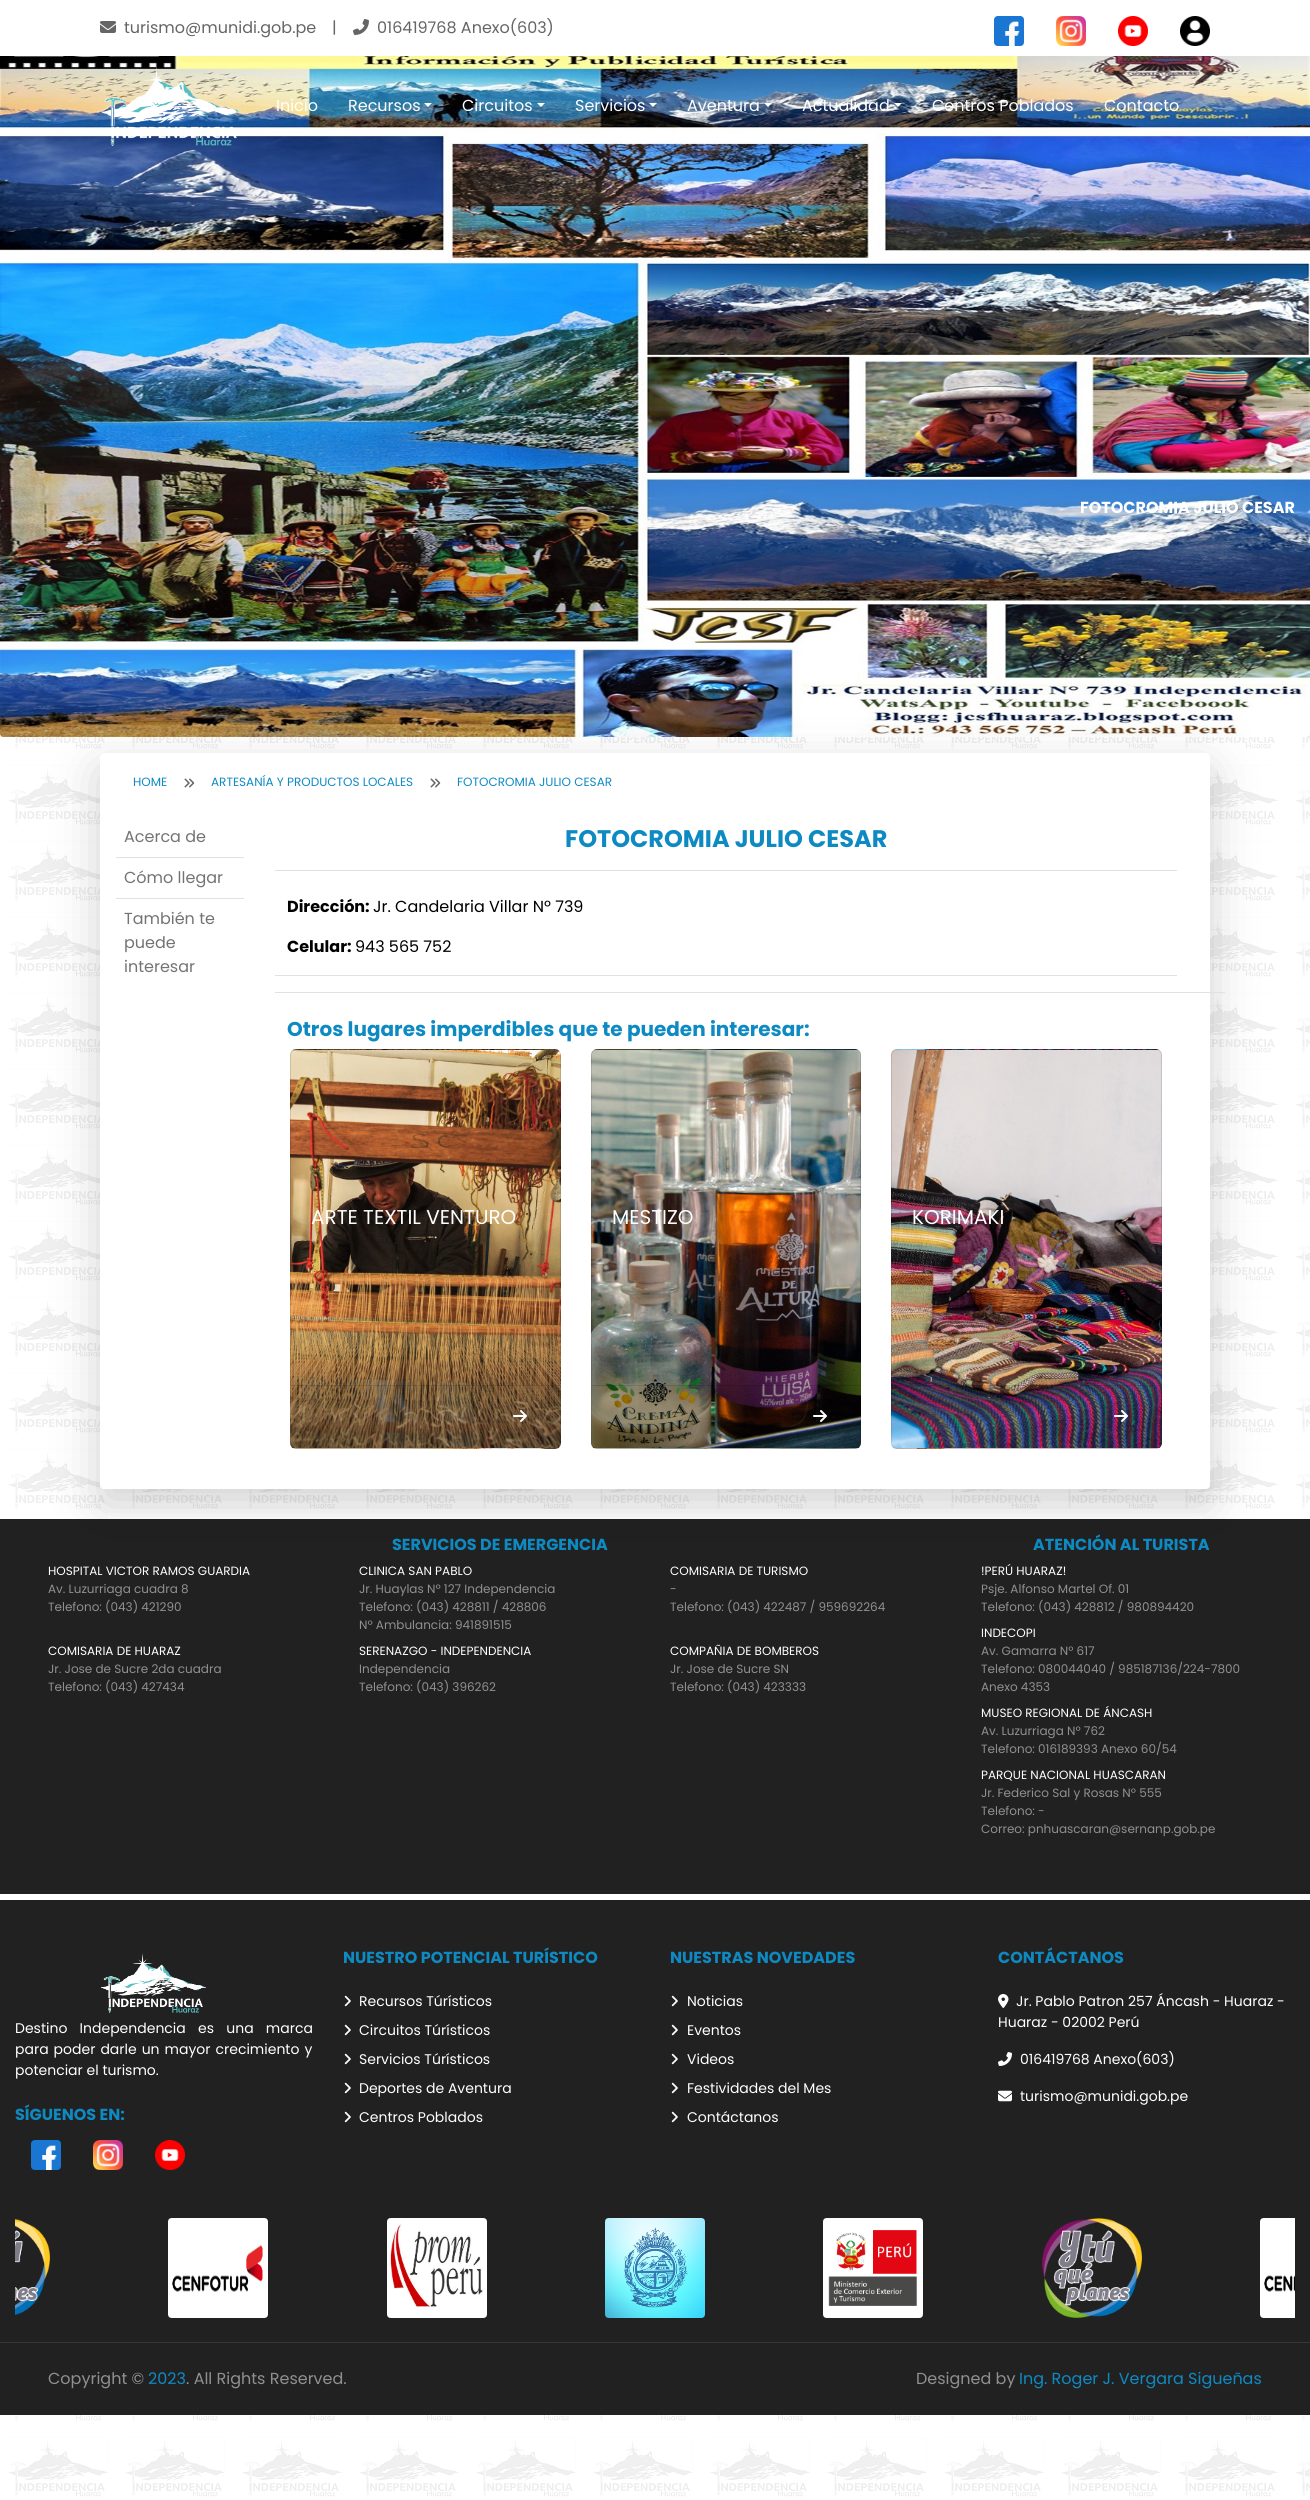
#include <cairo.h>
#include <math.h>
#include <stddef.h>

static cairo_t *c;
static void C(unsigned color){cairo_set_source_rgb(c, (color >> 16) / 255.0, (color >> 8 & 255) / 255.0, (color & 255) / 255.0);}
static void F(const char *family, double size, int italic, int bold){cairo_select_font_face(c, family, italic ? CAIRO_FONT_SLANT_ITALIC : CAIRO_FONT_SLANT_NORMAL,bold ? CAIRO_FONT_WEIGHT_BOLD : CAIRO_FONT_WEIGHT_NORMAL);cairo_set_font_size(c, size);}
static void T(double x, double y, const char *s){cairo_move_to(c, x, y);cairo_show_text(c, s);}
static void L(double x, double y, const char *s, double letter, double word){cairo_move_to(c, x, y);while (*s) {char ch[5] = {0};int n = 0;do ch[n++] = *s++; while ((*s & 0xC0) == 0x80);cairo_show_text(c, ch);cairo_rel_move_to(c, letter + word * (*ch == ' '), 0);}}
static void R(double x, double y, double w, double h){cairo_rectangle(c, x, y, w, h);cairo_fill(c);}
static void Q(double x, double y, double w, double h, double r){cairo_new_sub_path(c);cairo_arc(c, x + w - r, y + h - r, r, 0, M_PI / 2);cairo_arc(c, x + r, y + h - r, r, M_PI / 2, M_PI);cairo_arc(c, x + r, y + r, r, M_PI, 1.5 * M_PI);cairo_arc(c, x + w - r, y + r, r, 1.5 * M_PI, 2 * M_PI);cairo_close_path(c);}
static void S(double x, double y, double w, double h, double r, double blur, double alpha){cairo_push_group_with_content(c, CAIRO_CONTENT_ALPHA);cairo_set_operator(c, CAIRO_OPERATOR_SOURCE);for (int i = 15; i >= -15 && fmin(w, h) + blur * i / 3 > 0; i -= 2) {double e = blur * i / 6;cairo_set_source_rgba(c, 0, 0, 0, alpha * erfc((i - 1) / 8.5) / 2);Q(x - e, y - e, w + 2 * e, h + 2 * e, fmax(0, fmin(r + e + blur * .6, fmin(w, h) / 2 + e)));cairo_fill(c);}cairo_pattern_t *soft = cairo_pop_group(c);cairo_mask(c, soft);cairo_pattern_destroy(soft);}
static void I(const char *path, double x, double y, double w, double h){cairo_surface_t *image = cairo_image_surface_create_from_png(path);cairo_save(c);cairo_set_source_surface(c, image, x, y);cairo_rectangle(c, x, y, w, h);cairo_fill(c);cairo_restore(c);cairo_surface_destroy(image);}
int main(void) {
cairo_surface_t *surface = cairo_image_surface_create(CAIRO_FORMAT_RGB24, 1310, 2500);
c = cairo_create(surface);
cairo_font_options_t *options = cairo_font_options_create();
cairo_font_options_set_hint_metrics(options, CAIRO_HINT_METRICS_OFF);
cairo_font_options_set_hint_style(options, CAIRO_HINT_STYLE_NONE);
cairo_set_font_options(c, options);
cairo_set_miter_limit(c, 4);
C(0xffffff);
cairo_paint(c);
I("1.png",0,733,1310,1767);
cairo_save(c);
cairo_rectangle(c,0,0,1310,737);
cairo_clip(c);
C(0x000000);
S(0,8,1310,737,4,8,.15);
cairo_restore(c);
C(0xffffff);
R(0,0,1310,56);
I("2.png",100,21,16,12);
F("Poppins",16,0,0);
C(0x656565);
T(124,33,"turismo@munidi.gob.pe");
T(332,33,"|");
I("3.png",353,19,16,16);
T(377,33,"016419768 Anexo(603)");
I("4.png",994,16,30,30);
I("5.png",1056,16,30,30);
I("6.png",1118,16,30,30);
I("7.png",1180,16,30,30);
I("9.png",0,56,1310,681);
I("8.png",101,66,140,80);
C(0xffffff);
T(276,111,"Inicio");
T(348,111,"Recursos");
cairo_new_path(c);
cairo_move_to(c,424,103);
cairo_line_to(c,432,103);
cairo_line_to(c,428,107);
cairo_close_path(c);
cairo_fill(c);
T(462,111,"Circuitos");
cairo_new_path(c);
cairo_move_to(c,537,103);
cairo_line_to(c,545,103);
cairo_line_to(c,541,107);
cairo_close_path(c);
cairo_fill(c);
T(575,111,"Servicios");
cairo_new_path(c);
cairo_move_to(c,649,103);
cairo_line_to(c,657,103);
cairo_line_to(c,653,107);
cairo_close_path(c);
cairo_fill(c);
T(687,111,"Aventura");
cairo_new_path(c);
cairo_move_to(c,764,103);
cairo_line_to(c,772,103);
cairo_line_to(c,768,107);
cairo_close_path(c);
cairo_fill(c);
T(802,111,"Actualidad");
cairo_new_path(c);
cairo_move_to(c,894,103);
cairo_line_to(c,902,103);
cairo_line_to(c,898,107);
cairo_close_path(c);
cairo_fill(c);
T(932,111,"Centros Poblados");
T(1104,111,"Contacto");
F("Poppins",16,0,1);
T(1080,513,"FOTOCROMIA JULIO CESAR");
C(0x212121);
R(0,1519,1310,375);
C(0x000000);
S(100,769,1110,736,4,24,.18);
C(0xffffff);
Q(100,753,1110,736,4);
cairo_fill(c);
F("Poppins",12,0,0);
C(0x0e8ac3);
T(133,786,"HOME");
I("10.png",184,778,11,10);
T(211,786,"ARTESANÍA Y PRODUCTOS LOCALES");
I("10.png",430,778,11,10);
T(457,786,"FOTOCROMIA JULIO CESAR");
F("Poppins",16,0,0);
C(0x737373);
T(124,842,"Acerca de");
C(0xdee2e6);
R(116,857,128,1);
C(0x737373);
T(124,883,"Cómo llegar");
C(0xdee2e6);
R(116,898,128,1);
C(0x737373);
T(124,924,"También te");
T(124,948,"puede");
T(124,972,"interesar");
F("Poppins",24,0,1);
C(0x0e8ac3);
T(565,847,"FOTOCROMIA JULIO CESAR");
C(0xdee2e6);
R(275,870,902,1);
R(275,975,902,1);
F("Poppins",16,0,1);
C(0x000000);
T(287,912,"Dirección:");
F("Poppins",16,0,0);
T(373,912,"Jr. Candelaria Villar Nº 739");
F("Poppins",16,0,1);
T(287,952,"Celular:");
F("Poppins",16,0,0);
T(355,952,"943 565 752");
C(0xdee2e6);
R(275,992,950,1);
F("Poppins",20,0,1);
C(0x0e8ac3);
T(287,1036,"Otros lugares imperdibles que te pueden interesar:");
I("11.png",290,1049,271,400);
Q(290.5,1049.5,270,399,5.5);
cairo_set_source_rgba(c,0,0,0,0.12);
cairo_set_line_width(c,1);
cairo_stroke(c);
F("Poppins",20,0,0);
C(0xffffff);
T(311,1224,"ARTE TEXTIL VENTURO");
cairo_set_source_rgba(c,0,0,0,0.03);
R(291,1385,269,63);
cairo_set_source_rgba(c,0,0,0,0.12);
R(291,1385,269,1);
I("12.png",513,1410,14,12);
I("13.png",591,1049,270,400);
Q(591.5,1049.5,269,399,5.5);
cairo_stroke(c);
C(0xffffff);
T(612,1224,"MESTIZO");
cairo_set_source_rgba(c,0,0,0,0.03);
R(592,1385,268,63);
cairo_set_source_rgba(c,0,0,0,0.12);
R(592,1385,268,1);
I("14.png",813,1410,14,12);
I("15.png",891,1049,271,400);
Q(891.5,1049.5,270,399,5.5);
cairo_stroke(c);
C(0xffffff);
T(912,1224,"KORIMAKI");
cairo_set_source_rgba(c,0,0,0,0.03);
R(892,1385,269,63);
cairo_set_source_rgba(c,0,0,0,0.12);
R(892,1385,269,1);
I("16.png",1114,1410,14,12);
cairo_set_source_rgba(c,1,1,1,0.25);
R(108,1513,1094,6);
F("Poppins",16,0,1);
C(0x0e8ac3);
T(392,1550,"SERVICIOS DE EMERGENCIA");
F("Poppins",12,0,0);
C(0xffffff);
T(48,1575,"HOSPITAL VICTOR RAMOS GUARDIA");
C(0x909090);
T(48,1593,"Av. Luzurriaga cuadra 8");
T(48,1611,"Telefono: (043) 421290");
C(0xffffff);
T(359,1575,"CLINICA SAN PABLO");
C(0x909090);
T(359,1593,"Jr. Huaylas Nº 127 Independencia");
T(359,1611,"Telefono: (043) 428811 / 428806");
T(359,1629,"Nº Ambulancia: 941891515");
C(0xffffff);
T(670,1575,"COMISARIA DE TURISMO");
C(0x909090);
T(670,1593,"-");
T(670,1611,"Telefono: (043) 422487 / 959692264");
C(0xffffff);
T(48,1655,"COMISARIA DE HUARAZ");
C(0x909090);
T(48,1673,"Jr. Jose de Sucre 2da cuadra");
T(48,1691,"Telefono: (043) 427434");
C(0xffffff);
T(359,1655,"SERENAZGO - INDEPENDENCIA");
C(0x909090);
T(359,1673,"Independencia");
T(359,1691,"Telefono: (043) 396262");
C(0xffffff);
T(670,1655,"COMPAÑIA DE BOMBEROS");
C(0x909090);
T(670,1673,"Jr. Jose de Sucre SN");
T(670,1691,"Telefono: (043) 423333");
F("Poppins",16,0,1);
C(0x0e8ac3);
T(1033,1550,"ATENCIÓN AL TURISTA");
F("Poppins",12,0,0);
C(0xffffff);
T(981,1575,"!PERÚ HUARAZ!");
C(0x909090);
T(981,1593,"Psje. Alfonso Martel Of. 01");
T(981,1611,"Telefono: (043) 428812 / 980894420");
C(0xffffff);
T(981,1637,"INDECOPI");
C(0x909090);
T(981,1655,"Av. Gamarra Nº 617");
T(981,1673,"Telefono: 080044040 / 985187136/224-7800");
T(981,1691,"Anexo 4353");
C(0xffffff);
T(981,1717,"MUSEO REGIONAL DE ÁNCASH");
C(0x909090);
T(981,1735,"Av. Luzurriaga Nº 762");
T(981,1753,"Telefono: 016189393 Anexo 60/54");
C(0xffffff);
T(981,1779,"PARQUE NACIONAL HUASCARAN");
C(0x909090);
T(981,1797,"Jr. Federico Sal y Rosas Nº 555");
T(981,1815,"Telefono: -");
T(981,1833,"Correo: pnhuascaran@sernanp.gob.pe");
C(0x212121);
R(0,1900,1310,442);
I("17.png",101,1953,105,60);
F("Poppins",14,0,0);
C(0xffffff);
L(15,2033,"Destino Independencia es una marca",0,8.5);
L(15,2054,"para poder darle un mayor crecimiento y",0,1.25);
T(15,2075,"potenciar el turismo.");
F("Poppins",16,0,1);
C(0x0e8ac3);
T(15,2120,"SÍGUENOS EN:");
I("18.png",31,2140,30,30);
I("19.png",93,2140,30,30);
I("20.png",155,2140,30,30);
T(343,1963,"NUESTRO POTENCIAL TURÍSTICO");
I("21.png",344,1995,7,12);
F("Poppins",14,0,0);
C(0xffffff);
T(359,2006,"Recursos Túrísticos");
I("21.png",344,2024,7,12);
T(359,2035,"Circuitos Túrísticos");
I("21.png",344,2053,7,12);
T(359,2064,"Servicios Túrísticos");
I("21.png",344,2082,7,12);
T(359,2093,"Deportes de Aventura");
I("21.png",344,2111,7,12);
T(359,2122,"Centros Poblados");
F("Poppins",16,0,1);
C(0x0e8ac3);
T(670,1963,"NUESTRAS NOVEDADES");
I("21.png",671,1995,7,12);
F("Poppins",14,0,0);
C(0xffffff);
T(687,2006,"Noticias");
I("21.png",671,2024,7,12);
T(687,2035,"Eventos");
I("21.png",671,2053,7,12);
T(687,2064,"Videos");
I("21.png",671,2082,7,12);
T(687,2093,"Festividades del Mes");
I("21.png",671,2111,7,12);
T(687,2122,"Contáctanos");
F("Poppins",16,0,1);
C(0x0e8ac3);
T(998,1963,"CONTÁCTANOS");
I("22.png",998,1994,11,14);
F("Poppins",14,0,0);
C(0xffffff);
T(1016,2006,"Jr. Pablo Patron 257 Áncash - Huaraz -");
T(998,2027,"Huaraz - 02002 Perú");
I("23.png",998,2052,14,14);
T(1020,2064,"016419768 Anexo(603)");
I("24.png",998,2090,14,12);
T(1020,2101,"turismo@munidi.gob.pe");
I("25.png",15,2218,35,97);
I("26.png",168,2218,100,100);
I("27.png",387,2218,100,100);
I("28.png",605,2218,100,100);
I("29.png",823,2218,100,100);
I("30.png",1042,2218,100,100);
I("31.png",1260,2218,35,100);
C(0x212121);
R(0,2343,1310,72);
C(0x373737);
R(0,2342,1310,1);
F("Poppins",16,0,0);
C(0x909090);
T(48,2384,"Copyright ©");
C(0x0e8ac3);
T(148,2384,"2023");
C(0x909090);
T(186,2384,". All Rights Reserved.");
T(916,2384,"Designed by");
C(0x0e8ac3);
T(1019,2384,"Ing. Roger J. Vergara Sigueñas");
cairo_surface_write_to_png(surface, "o.png");
cairo_font_options_destroy(options);
cairo_destroy(c);
cairo_surface_destroy(surface);
return 0;
}
